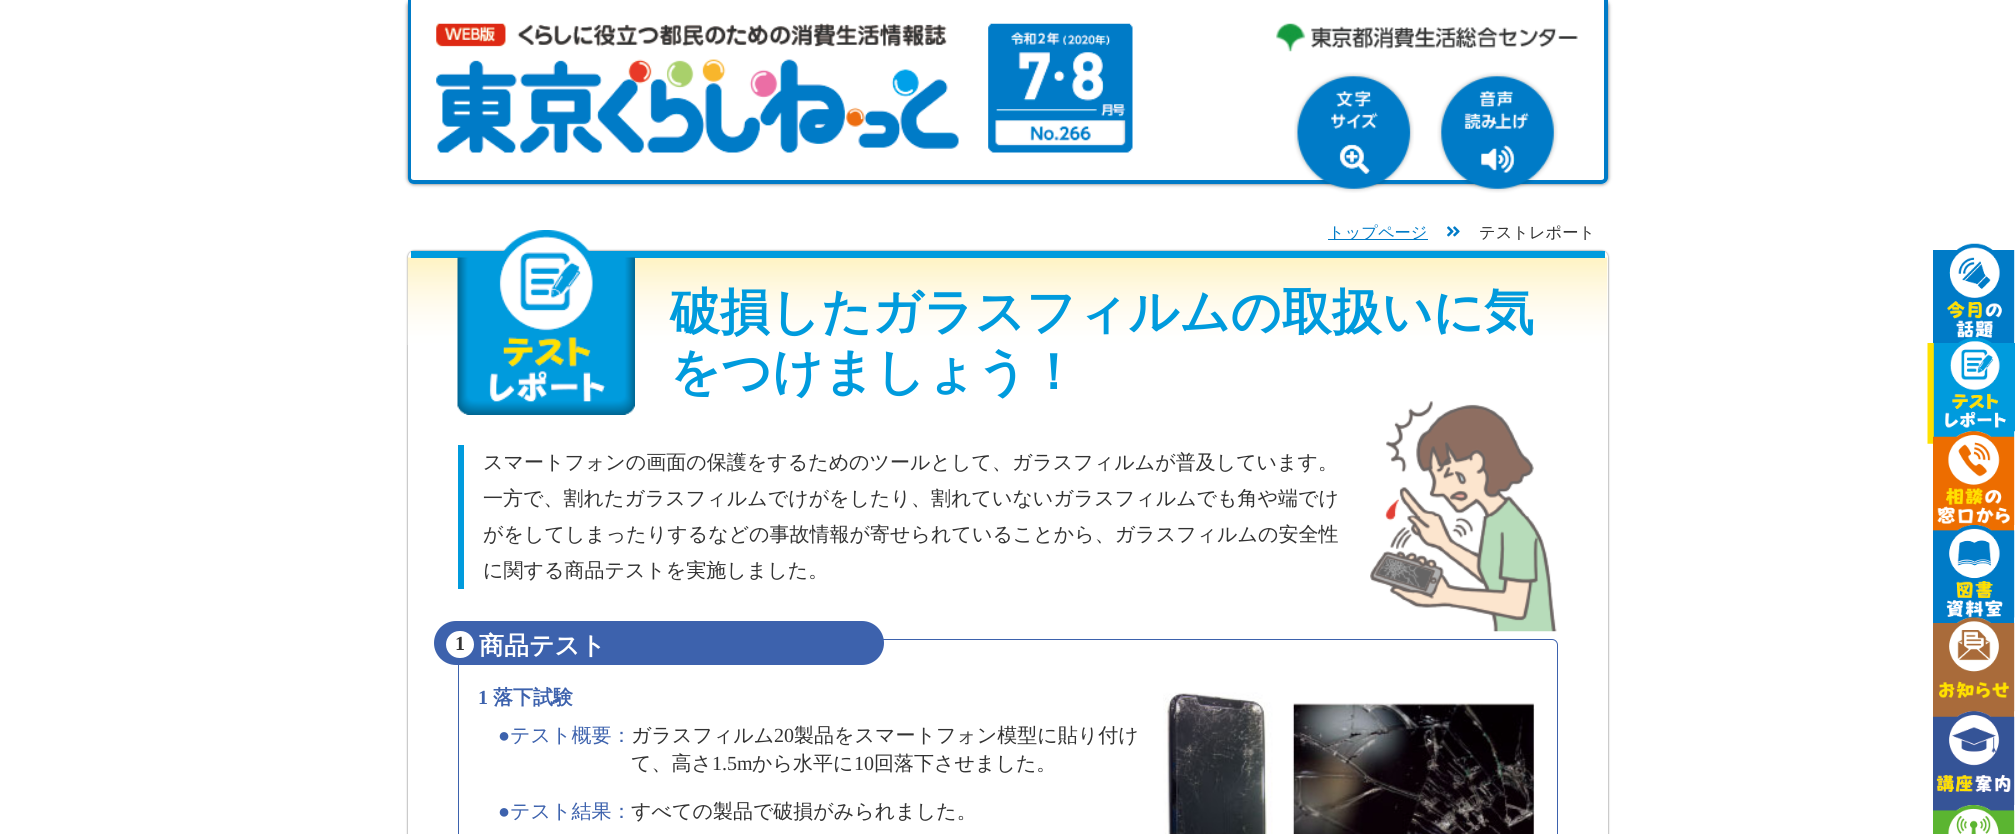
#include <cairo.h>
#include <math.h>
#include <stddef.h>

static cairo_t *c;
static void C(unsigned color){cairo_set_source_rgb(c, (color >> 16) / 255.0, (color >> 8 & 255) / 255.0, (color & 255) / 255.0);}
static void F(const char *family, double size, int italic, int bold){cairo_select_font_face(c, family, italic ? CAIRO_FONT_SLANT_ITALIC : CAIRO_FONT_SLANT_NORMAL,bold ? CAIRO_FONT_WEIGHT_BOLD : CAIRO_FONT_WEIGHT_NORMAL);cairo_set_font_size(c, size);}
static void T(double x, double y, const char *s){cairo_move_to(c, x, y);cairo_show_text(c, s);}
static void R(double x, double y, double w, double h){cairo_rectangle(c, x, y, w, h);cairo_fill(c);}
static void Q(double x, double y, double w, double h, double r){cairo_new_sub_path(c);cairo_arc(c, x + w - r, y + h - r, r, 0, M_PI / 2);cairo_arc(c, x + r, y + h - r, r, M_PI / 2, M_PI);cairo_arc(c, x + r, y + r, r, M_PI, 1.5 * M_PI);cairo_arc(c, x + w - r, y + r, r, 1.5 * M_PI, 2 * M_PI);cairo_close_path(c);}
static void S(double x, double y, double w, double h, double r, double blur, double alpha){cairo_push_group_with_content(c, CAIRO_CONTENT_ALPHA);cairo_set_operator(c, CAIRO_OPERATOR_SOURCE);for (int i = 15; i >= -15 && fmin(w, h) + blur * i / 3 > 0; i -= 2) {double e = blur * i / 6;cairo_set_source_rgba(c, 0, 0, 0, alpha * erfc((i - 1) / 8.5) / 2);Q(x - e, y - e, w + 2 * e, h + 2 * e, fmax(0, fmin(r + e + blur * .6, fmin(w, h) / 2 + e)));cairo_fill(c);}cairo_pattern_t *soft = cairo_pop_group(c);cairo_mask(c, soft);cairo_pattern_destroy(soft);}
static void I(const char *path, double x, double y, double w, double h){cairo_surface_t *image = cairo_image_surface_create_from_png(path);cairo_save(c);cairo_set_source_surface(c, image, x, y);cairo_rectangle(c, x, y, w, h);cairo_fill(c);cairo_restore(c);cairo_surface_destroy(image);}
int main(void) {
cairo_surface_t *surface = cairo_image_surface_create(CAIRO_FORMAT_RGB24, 2015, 834);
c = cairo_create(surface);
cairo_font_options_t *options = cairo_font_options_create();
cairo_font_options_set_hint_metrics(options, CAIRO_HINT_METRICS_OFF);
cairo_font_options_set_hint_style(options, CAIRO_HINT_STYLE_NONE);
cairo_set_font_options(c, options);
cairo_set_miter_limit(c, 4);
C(0xffffff);
cairo_paint(c);
C(0x666666);
S(408,0,1200,184,6,2,1);
C(0xffffff);
cairo_new_path(c);
cairo_move_to(c,408,0);
cairo_line_to(c,1608,0);
cairo_line_to(c,1608,178);
cairo_curve_to(c,1608,181.5,1605.5,184,1602,184);
cairo_line_to(c,414,184);
cairo_curve_to(c,410.5,184,408,181.5,408,178);
cairo_close_path(c);
cairo_fill(c);
C(0x007bc7);
cairo_set_fill_rule(c,CAIRO_FILL_RULE_EVEN_ODD);
cairo_new_path(c);
cairo_move_to(c,408,0);
cairo_line_to(c,1608,0);
cairo_line_to(c,1608,178);
cairo_curve_to(c,1608,181,1605,184,1601,184);
cairo_line_to(c,414,184);
cairo_curve_to(c,410,184,408,181,408,178);
cairo_close_path(c);
cairo_move_to(c,411,0);
cairo_line_to(c,1604,0);
cairo_line_to(c,1604,178);
cairo_curve_to(c,1604,179,1603,180,1601,180);
cairo_line_to(c,414,180);
cairo_curve_to(c,412,180,411,179,411,178);
cairo_close_path(c);
cairo_fill(c);
I("1.png",436,23,697,130);
I("2.png",1276,23,302,29);
I("3.png",1294,72,120,121);
I("4.png",1437,72,121,121);
R(1328,239,100,1);
F("WenQuanYi Zen Hei Medium",16.25,0,0);
T(1328,238,"トップページ");
I("5.png",1447,226,13,11);
C(0x333333);
T(1479,238,"テストレポート");
C(0x666666);
S(408,251,1200,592,6,1,1);
C(0xffffff);
Q(408,251,1200,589,6);
cairo_fill(c);
I("6.png",407,257,1201,88);
C(0x009bdd);
R(411,251,1194,7);
I("7.png",457,230,178,185);
F("WenQuanYi Zen Hei",50,0,1);
T(670,329,"破損したガラスフィルムの取扱いに気");
T(670,389,"をつけましょう！");
R(458,445,6,144);
F("WenQuanYi Zen Hei Medium",20,0,0);
C(0x333333);
T(483,469,"スマートフォンの画面の保護をするためのツールとして、ガラスフィルムが普及しています。");
T(483,505,"一方で、割れたガラスフィルムでけがをしたり、割れていないガラスフィルムでも角や端でけ");
T(483,541,"がをしてしまったりするなどの事故情報が寄せられていることから、ガラスフィルムの安全性");
T(483,577,"に関する商品テストを実施しました。");
I("8.png",1370,401,187,231);
Q(458.5,639.5,1099,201,5.5);
C(0x3d62ad);
cairo_set_line_width(c,1);
cairo_stroke(c);
Q(434,621,450,44,22);
cairo_fill(c);
C(0xffffff);
Q(446,631,28,27,13.5);
cairo_fill(c);
F("Liberation Serif",20,0,1);
C(0x333333);
T(455,650,"1");
F("WenQuanYi Zen Hei",25,0,1);
C(0xffffff);
T(479,654,"商品テスト");
F("Liberation Serif",20,0,1);
C(0x3d62ad);
T(478,704,"1");
F("WenQuanYi Zen Hei",20,0,1);
T(493,704,"落下試験");
I("9.png",1163,692,372,142);
F("Liberation Serif",20,0,0);
T(498,742,"●");
F("WenQuanYi Zen Hei Medium",20,0,0);
T(510,742,"テスト概要：");
C(0x333333);
T(631,742,"ガラスフィルム");
F("Liberation Serif",20,0,0);
T(774,742,"20");
F("WenQuanYi Zen Hei Medium",20,0,0);
T(794,742,"製品をスマートフォン模型に貼り付け");
T(631,770,"て、高さ");
F("Liberation Serif",20,0,0);
T(712,770,"1.5m");
F("WenQuanYi Zen Hei Medium",20,0,0);
T(752,770,"から水平に");
F("Liberation Serif",20,0,0);
T(854,770,"10");
F("WenQuanYi Zen Hei Medium",20,0,0);
T(874,770,"回落下させました。");
F("Liberation Serif",20,0,0);
C(0x3d62ad);
T(498,818,"●");
F("WenQuanYi Zen Hei Medium",20,0,0);
T(510,818,"テスト結果：");
C(0x333333);
T(631,818,"すべての製品で破損がみられました。");
I("10.png",1933,243,82,100);
I("11.png",1927,337,88,107);
I("12.png",1933,431,82,100);
I("13.png",1933,525,82,98);
I("14.png",1933,617,82,100);
I("15.png",1933,711,82,100);
I("16.png",1933,805,82,29);
cairo_surface_write_to_png(surface, "o.png");
cairo_font_options_destroy(options);
cairo_destroy(c);
cairo_surface_destroy(surface);
return 0;
}
